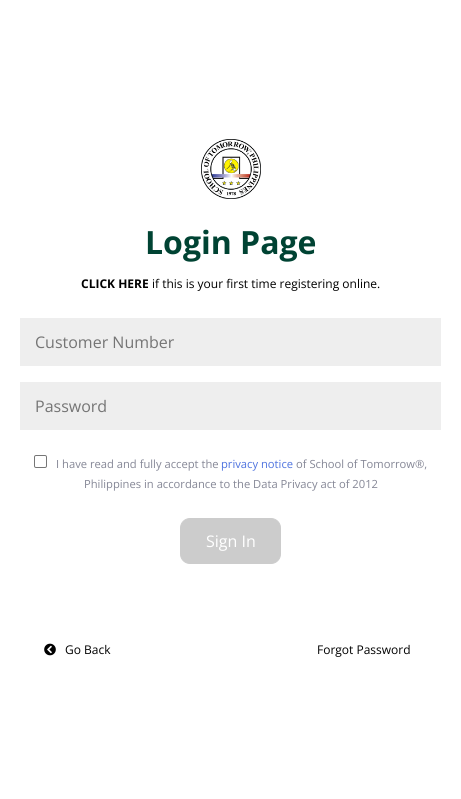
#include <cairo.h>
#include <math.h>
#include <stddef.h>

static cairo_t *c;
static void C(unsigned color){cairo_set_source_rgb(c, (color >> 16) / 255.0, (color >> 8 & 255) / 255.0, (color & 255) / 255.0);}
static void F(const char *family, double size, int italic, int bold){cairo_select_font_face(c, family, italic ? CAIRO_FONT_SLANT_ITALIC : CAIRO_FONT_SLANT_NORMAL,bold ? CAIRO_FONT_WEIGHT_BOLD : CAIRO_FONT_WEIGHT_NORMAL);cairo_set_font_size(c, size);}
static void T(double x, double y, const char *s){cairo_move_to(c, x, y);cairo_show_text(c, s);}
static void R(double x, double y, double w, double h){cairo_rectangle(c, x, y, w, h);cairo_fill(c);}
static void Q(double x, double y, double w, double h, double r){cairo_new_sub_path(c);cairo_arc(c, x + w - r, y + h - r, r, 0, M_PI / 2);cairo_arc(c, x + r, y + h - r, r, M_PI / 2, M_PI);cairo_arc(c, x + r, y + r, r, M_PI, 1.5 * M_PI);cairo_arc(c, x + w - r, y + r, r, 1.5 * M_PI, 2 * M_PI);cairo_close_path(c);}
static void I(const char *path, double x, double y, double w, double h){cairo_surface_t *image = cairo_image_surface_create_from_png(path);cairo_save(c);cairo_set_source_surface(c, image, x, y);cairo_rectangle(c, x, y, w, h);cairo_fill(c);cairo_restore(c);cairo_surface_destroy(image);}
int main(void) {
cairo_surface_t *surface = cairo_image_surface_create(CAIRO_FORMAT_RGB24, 461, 799);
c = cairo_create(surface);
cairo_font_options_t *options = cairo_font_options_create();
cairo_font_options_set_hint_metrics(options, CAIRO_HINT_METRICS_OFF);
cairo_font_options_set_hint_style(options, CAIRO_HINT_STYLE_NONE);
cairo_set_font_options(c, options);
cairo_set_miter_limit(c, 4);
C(0xffffff);
cairo_paint(c);
I("1.png",201,139,60,60);
F("Open Sans",32,0,1);
C(0x004333);
T(145,254,"Login Page");
F("Open Sans",12,0,1);
C(0x000000);
T(81,288,"CLICK HERE");
F("Open Sans",12,0,0);
T(152,288,"if this is your first time registering online.");
C(0xeeeeee);
R(20,318,421,48);
F("Open Sans",16,0,0);
C(0x757575);
T(35,348,"Customer Number");
C(0xeeeeee);
R(20,382,421,48);
C(0x757575);
T(35,412,"Password");
Q(34.5,455.5,12,12,1.5);
C(0x767676);
cairo_set_line_width(c,1);
cairo_stroke(c);
F("Open Sans",11.2,0,0);
C(0x858796);
T(56,468,"I have read and fully accept the");
C(0x4e73df);
T(221,468,"privacy notice");
C(0x858796);
T(296,468,"of School of Tomorrow®,");
T(84,488,"Philippines in accordance to the Data Privacy act of 2012");
C(0xcccccc);
Q(180.5,518.5,100,45,9.5);
cairo_fill_preserve(c);
cairo_stroke(c);
F("Open Sans",16,0,0);
C(0xffffff);
T(206,547,"Sign In");
I("2.png",44,643,12,13);
F("Open Sans",12,0,0);
C(0x000000);
T(65,654,"Go Back");
T(317,654,"Forgot Password");
cairo_surface_write_to_png(surface, "o.png");
cairo_font_options_destroy(options);
cairo_destroy(c);
cairo_surface_destroy(surface);
return 0;
}
